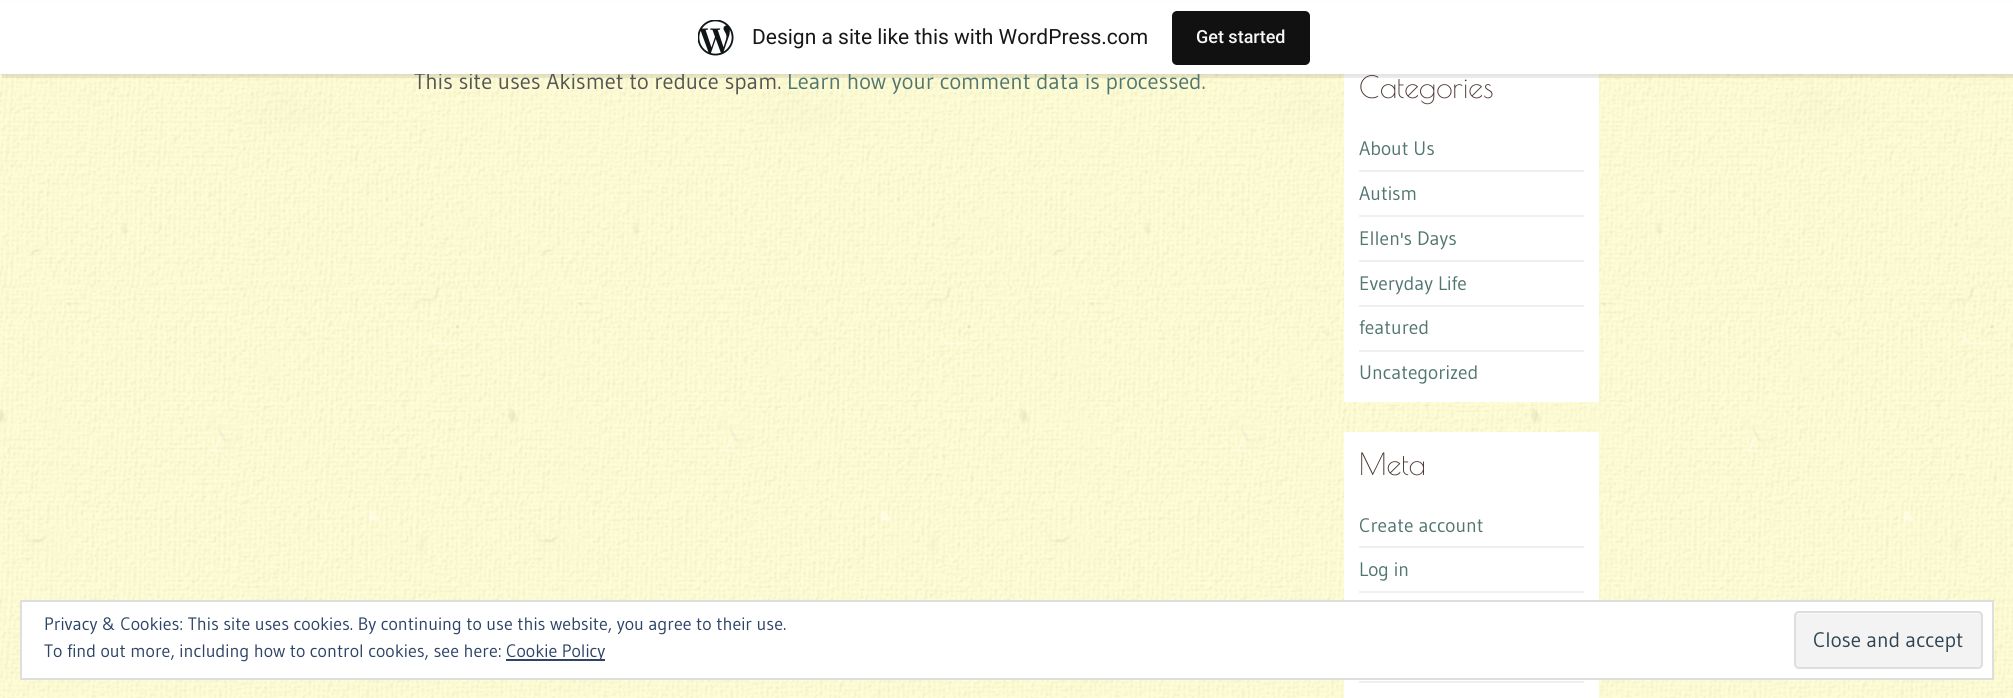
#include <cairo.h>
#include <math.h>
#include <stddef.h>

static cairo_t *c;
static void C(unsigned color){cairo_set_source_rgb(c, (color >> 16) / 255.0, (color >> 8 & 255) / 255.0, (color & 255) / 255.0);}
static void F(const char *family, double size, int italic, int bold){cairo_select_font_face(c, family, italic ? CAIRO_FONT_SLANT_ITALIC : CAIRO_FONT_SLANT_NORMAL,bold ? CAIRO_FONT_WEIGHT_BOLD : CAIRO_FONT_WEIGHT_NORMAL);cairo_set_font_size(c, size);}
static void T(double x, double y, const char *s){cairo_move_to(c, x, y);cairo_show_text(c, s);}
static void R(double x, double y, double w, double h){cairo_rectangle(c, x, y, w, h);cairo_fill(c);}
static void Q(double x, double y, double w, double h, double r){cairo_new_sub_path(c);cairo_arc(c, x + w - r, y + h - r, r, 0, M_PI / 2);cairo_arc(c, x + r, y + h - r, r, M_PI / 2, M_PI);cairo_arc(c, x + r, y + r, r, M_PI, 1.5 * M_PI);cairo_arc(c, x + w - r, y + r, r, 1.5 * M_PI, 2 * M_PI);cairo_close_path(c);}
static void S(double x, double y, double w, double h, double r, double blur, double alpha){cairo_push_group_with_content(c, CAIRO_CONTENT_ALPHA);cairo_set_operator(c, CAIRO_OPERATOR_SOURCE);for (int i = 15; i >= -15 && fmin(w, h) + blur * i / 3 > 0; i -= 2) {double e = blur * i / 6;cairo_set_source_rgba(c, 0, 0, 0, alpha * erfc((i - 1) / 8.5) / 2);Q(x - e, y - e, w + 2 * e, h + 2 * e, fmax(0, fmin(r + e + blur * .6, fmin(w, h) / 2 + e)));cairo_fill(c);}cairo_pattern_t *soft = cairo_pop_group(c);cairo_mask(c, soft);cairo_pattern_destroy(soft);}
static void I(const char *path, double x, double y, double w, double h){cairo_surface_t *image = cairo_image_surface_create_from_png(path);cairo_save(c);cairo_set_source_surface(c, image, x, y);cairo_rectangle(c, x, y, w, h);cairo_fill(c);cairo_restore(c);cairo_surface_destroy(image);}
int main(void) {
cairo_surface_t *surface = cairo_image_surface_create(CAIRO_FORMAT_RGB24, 2013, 698);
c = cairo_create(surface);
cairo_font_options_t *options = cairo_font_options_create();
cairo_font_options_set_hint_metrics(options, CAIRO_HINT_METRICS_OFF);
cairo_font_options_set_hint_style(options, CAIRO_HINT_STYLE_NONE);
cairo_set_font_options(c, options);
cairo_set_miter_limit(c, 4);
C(0xffffff);
cairo_paint(c);
I("1.png",0,74,2013,624);
C(0xffffff);
R(1344,74,255,328);
C(0x000000);
S(0,2,2013,73,0,1.5,.05);
cairo_set_source_rgba(c,0,0,0,0.08);
cairo_new_path(c);
cairo_move_to(c,2,74);
cairo_line_to(c,2,78);
cairo_line_to(c,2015,78);
cairo_line_to(c,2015,5);
cairo_line_to(c,2013,5);
cairo_line_to(c,2013,74);
cairo_close_path(c);
cairo_fill(c);
F("Gudea",22.5,0,0);
C(0x555555);
T(414,89,"This site uses Akismet to reduce spam.");
C(0x51756f);
T(787,89,"Learn how your comment data is processed.");
C(0xffffff);
R(0,1,2013,73);
I("2.png",698,20,36,36);
F("Roboto",21,0,0);
C(0x171717);
T(752,44,"Design a site like this with WordPress.com");
C(0x111111);
Q(1172,11,138,54,5);
cairo_fill(c);
F("Roboto Medium",18,0,0);
C(0xf6f7f7);
T(1196,43,"Get started");
F("Poiret One",30,0,0);
C(0x49352f);
T(1359,98,"Categories");
C(0xefefef);
R(1359,170,225,2);
F("Gudea",19.5,0,0);
C(0x51756f);
T(1359,155,"About Us");
C(0xefefef);
R(1359,215,225,2);
C(0x51756f);
T(1359,200,"Autism");
C(0xefefef);
R(1359,260,225,2);
C(0x51756f);
T(1359,245,"Ellen's Days");
C(0xefefef);
R(1359,305,225,2);
C(0x51756f);
T(1359,290,"Everyday Life");
C(0xefefef);
R(1359,350,225,2);
C(0x51756f);
T(1359,334,"featured");
T(1359,379,"Uncategorized");
C(0xffffff);
R(1344,432,255,266);
F("Poiret One",30,0,0);
C(0x49352f);
T(1359,475,"Meta");
C(0xefefef);
R(1359,546,225,2);
F("Gudea",19.5,0,0);
C(0x51756f);
T(1359,532,"Create account");
C(0xefefef);
R(1359,591,225,2);
C(0x51756f);
T(1359,576,"Log in");
C(0xefefef);
R(1359,681,225,2);
C(0xffffff);
cairo_rectangle(c,21,601,1972,78);
cairo_fill_preserve(c);
C(0xdedede);
cairo_stroke(c);
F("Gudea",18,0,0);
C(0x2e4467);
T(44,630,"Privacy & Cookies: This site uses cookies. By continuing to use this website, you agree to their use.");
T(44,657,"To find out more, including how to control cookies, see here:");
R(506,659,99,2);
T(506,657,"Cookie Policy");
C(0xf3f3f3);
Q(1794,611,189,58,5);
cairo_fill(c);
C(0xf9f9f9);
cairo_new_path(c);
cairo_move_to(c,1798,614);
cairo_line_to(c,1978,614);
cairo_curve_to(c,1980,614,1982,615,1982,616);
cairo_curve_to(c,1982,614,1981,612,1979,612);
cairo_line_to(c,1798,612);
cairo_curve_to(c,1796,613,1796,614,1796,616);
cairo_curve_to(c,1796,615,1797,614,1798,614);
cairo_close_path(c);
cairo_fill(c);
Q(1795,612,187,56,4);
C(0xdedede);
cairo_stroke(c);
F("Gudea",21,0,0);
C(0x2e4453);
T(1813,647,"Close and accept");
cairo_surface_write_to_png(surface, "o.png");
cairo_font_options_destroy(options);
cairo_destroy(c);
cairo_surface_destroy(surface);
return 0;
}
